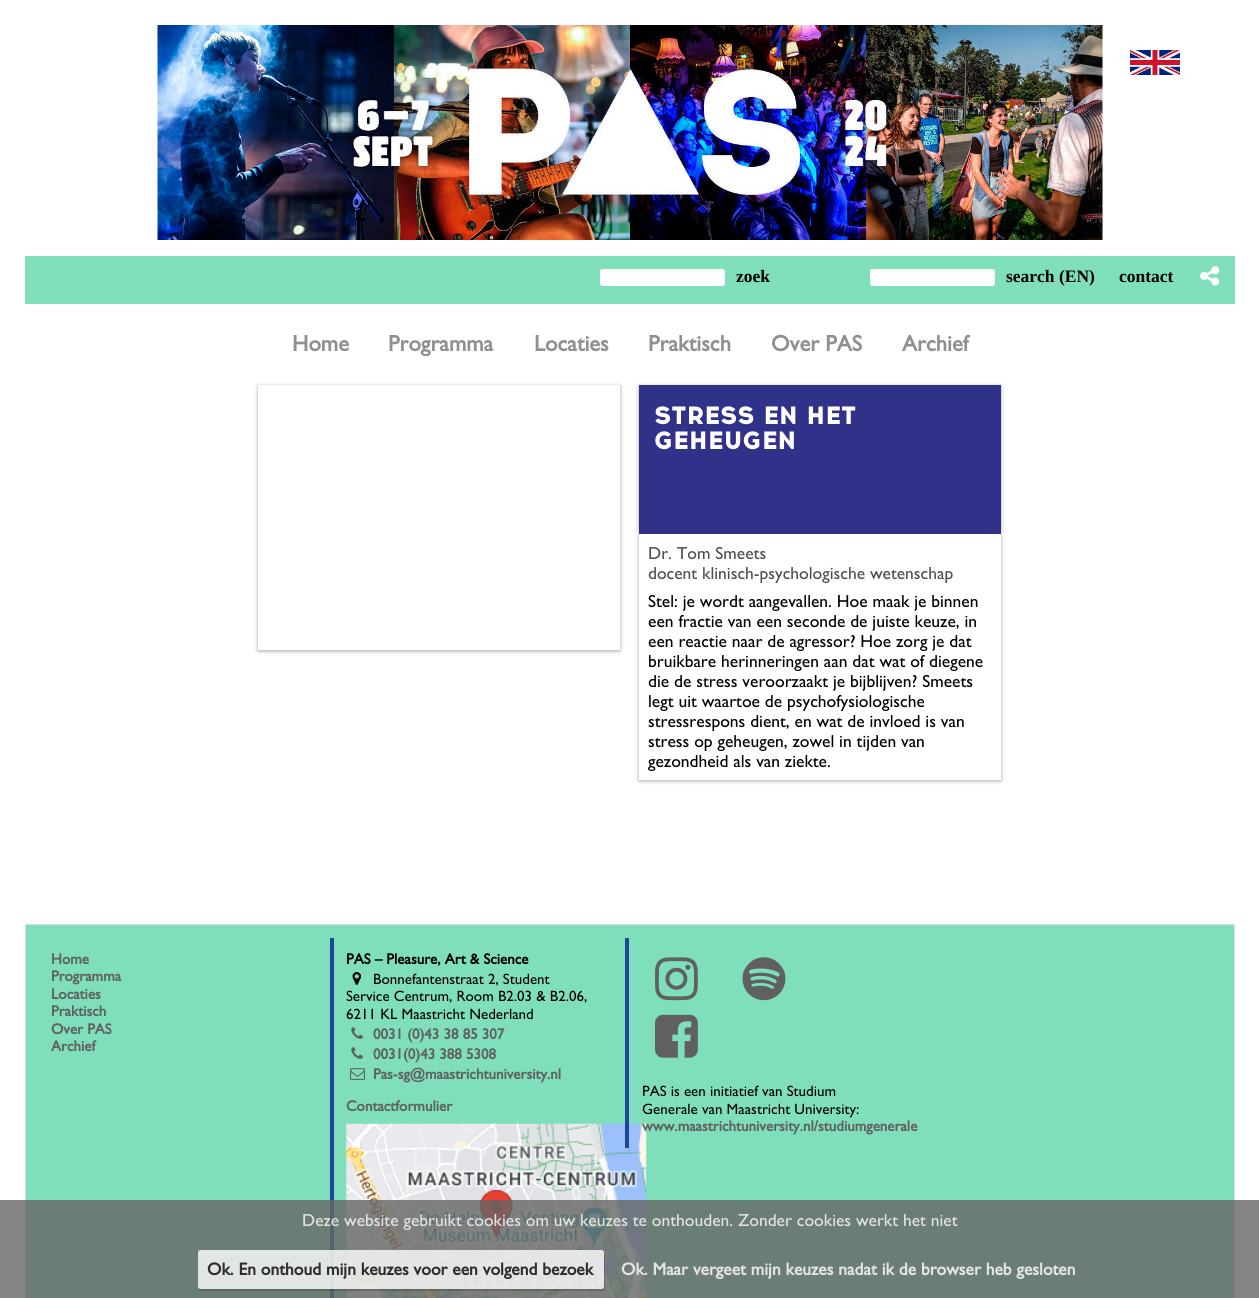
#include <cairo.h>
#include <math.h>
#include <stddef.h>

static cairo_t *c;
static void C(unsigned color){cairo_set_source_rgb(c, (color >> 16) / 255.0, (color >> 8 & 255) / 255.0, (color & 255) / 255.0);}
static void F(const char *family, double size, int italic, int bold){cairo_select_font_face(c, family, italic ? CAIRO_FONT_SLANT_ITALIC : CAIRO_FONT_SLANT_NORMAL,bold ? CAIRO_FONT_WEIGHT_BOLD : CAIRO_FONT_WEIGHT_NORMAL);cairo_set_font_size(c, size);}
static void T(double x, double y, const char *s){cairo_move_to(c, x, y);cairo_show_text(c, s);}
static void R(double x, double y, double w, double h){cairo_rectangle(c, x, y, w, h);cairo_fill(c);}
static void Q(double x, double y, double w, double h, double r){cairo_new_sub_path(c);cairo_arc(c, x + w - r, y + h - r, r, 0, M_PI / 2);cairo_arc(c, x + r, y + h - r, r, M_PI / 2, M_PI);cairo_arc(c, x + r, y + r, r, M_PI, 1.5 * M_PI);cairo_arc(c, x + w - r, y + r, r, 1.5 * M_PI, 2 * M_PI);cairo_close_path(c);}
static void S(double x, double y, double w, double h, double r, double blur, double alpha){cairo_push_group_with_content(c, CAIRO_CONTENT_ALPHA);cairo_set_operator(c, CAIRO_OPERATOR_SOURCE);for (int i = 15; i >= -15 && fmin(w, h) + blur * i / 3 > 0; i -= 2) {double e = blur * i / 6;cairo_set_source_rgba(c, 0, 0, 0, alpha * erfc((i - 1) / 8.5) / 2);Q(x - e, y - e, w + 2 * e, h + 2 * e, fmax(0, fmin(r + e + blur * .6, fmin(w, h) / 2 + e)));cairo_fill(c);}cairo_pattern_t *soft = cairo_pop_group(c);cairo_mask(c, soft);cairo_pattern_destroy(soft);}
static void I(const char *path, double x, double y, double w, double h){cairo_surface_t *image = cairo_image_surface_create_from_png(path);cairo_save(c);cairo_set_source_surface(c, image, x, y);cairo_rectangle(c, x, y, w, h);cairo_fill(c);cairo_restore(c);cairo_surface_destroy(image);}
int main(void) {
cairo_surface_t *surface = cairo_image_surface_create(CAIRO_FORMAT_RGB24, 1259, 1298);
c = cairo_create(surface);
cairo_font_options_t *options = cairo_font_options_create();
cairo_font_options_set_hint_metrics(options, CAIRO_HINT_METRICS_OFF);
cairo_font_options_set_hint_style(options, CAIRO_HINT_STYLE_NONE);
cairo_set_font_options(c, options);
cairo_set_miter_limit(c, 4);
C(0xffffff);
cairo_paint(c);
I("1.png",157,25,946,215);
I("2.png",1130,50,50,25);
C(0x7edfba);
R(25,256,1210,48);
C(0xffffff);
Q(600,269,125,17,2.5);
cairo_fill(c);
F("Liberation Serif",17.5,0,1);
C(0x000000);
T(736,282,"zoek");
C(0xffffff);
Q(870,269,125,17,2.5);
cairo_fill(c);
C(0x000000);
T(1006,282,"search (EN)");
T(1119,282,"contact");
I("3.png",1200,266,20,20);
F("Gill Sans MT",22.5,0,1);
C(0x909090);
T(292,351,"Home");
T(388,351,"Programma");
T(534,351,"Locaties");
T(648,351,"Praktisch");
T(771,351,"Over PAS");
T(902,351,"Archief");
cairo_save(c);
cairo_set_fill_rule(c,CAIRO_FILL_RULE_EVEN_ODD);
cairo_new_path(c);
cairo_move_to(c,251,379);
cairo_line_to(c,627,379);
cairo_line_to(c,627,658);
cairo_line_to(c,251,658);
cairo_close_path(c);
cairo_move_to(c,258,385);
cairo_line_to(c,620,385);
cairo_line_to(c,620,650);
cairo_line_to(c,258,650);
cairo_close_path(c);
cairo_clip(c);
C(0x221919);
S(258,386,362,265,0,2,.4);
cairo_restore(c);
cairo_save(c);
cairo_set_fill_rule(c,CAIRO_FILL_RULE_EVEN_ODD);
cairo_new_path(c);
cairo_move_to(c,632,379);
cairo_line_to(c,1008,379);
cairo_line_to(c,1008,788);
cairo_line_to(c,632,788);
cairo_close_path(c);
cairo_move_to(c,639,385);
cairo_line_to(c,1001,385);
cairo_line_to(c,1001,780);
cairo_line_to(c,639,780);
cairo_close_path(c);
cairo_clip(c);
C(0x221919);
S(639,386,362,395,0,2,.4);
cairo_restore(c);
C(0x303289);
R(639,385,362,149);
F("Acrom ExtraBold",25,0,0);
C(0xffffff);
T(654,424,"STRESS EN HET");
T(654,449,"GEHEUGEN");
F("Gill Sans MT",17.5,0,0);
C(0x524d4d);
T(648,559,"Dr. Tom Smeets");
T(648,579,"docent klinisch-psychologische wetenschap");
C(0x000000);
T(648,607,"Stel: je wordt aangevallen. Hoe maak je binnen");
T(648,627,"een fractie van een seconde de juiste keuze, in");
T(648,647,"een reactie naar de agressor? Hoe zorg je dat");
T(648,667,"bruikbare herinneringen aan dat wat of diegene");
T(648,687,"die de stress veroorzaakt je bijblijven? Smeets");
T(648,707,"legt uit waartoe de psychofysiologische");
T(648,727,"stressrespons dient, en wat de invloed is van");
T(648,747,"stress op geheugen, zowel in tijden van");
cairo_save(c);
cairo_rectangle(c,648,543,345,228);
cairo_clip(c);
T(648,767,"gezondheid als van ziekte.");
cairo_restore(c);
C(0x7edfba);
cairo_rectangle(c,25.5,924.5,1209,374);
cairo_fill_preserve(c);
C(0xdddddd);
cairo_set_line_width(c,1);
cairo_stroke(c);
F("Gill Sans MT",15,0,1);
C(0x606060);
T(51,964,"Home");
T(51,981,"Programma");
T(51,999,"Locaties");
T(51,1016,"Praktisch");
T(51,1034,"Over PAS");
T(51,1051,"Archief");
C(0x1c489b);
R(330,938,4,360);
C(0x000000);
T(346,964,"PAS – Pleasure, Art & Science");
I("4.png",352,972,10,13);
F("Gill Sans MT",15,0,0);
T(373,984,"Bonnefantenstraat 2, Student");
T(346,1001,"Service Centrum, Room B2.03 & B2.06,");
T(346,1019,"6211 KL Maastricht Nederland");
I("5.png",351,1027,12,12);
F("Gill Sans MT",15,0,1);
C(0x606060);
T(373,1039,"0031 (0)43 38 85 307");
I("5.png",351,1047,12,12);
T(373,1059,"0031(0)43 388 5308");
I("6.png",350,1068,15,12);
T(373,1079,"Pas-sg@maastrichtuniversity.nl");
T(346,1111,"Contactformulier");
I("7.png",346,1123,301,175);
C(0x1c489b);
R(625,938,4,210);
I("8.png",655,957,43,44);
I("9.png",742,957,44,44);
I("10.png",655,1014,43,44);
F("Gill Sans MT",15,0,0);
C(0x000000);
T(642,1096,"PAS is een initiatief van Studium");
T(642,1114,"Generale van Maastricht University:");
F("Gill Sans MT",15,0,1);
C(0x606060);
T(642,1131,"www.maastrichtuniversity.nl/studiumgenerale");
cairo_set_source_rgba(c,0.4,0.4,0.4,0.8);
R(0,1200,1259,98);
F("Gill Sans MT",17.5,0,0);
C(0xe3e5e4);
T(302,1226,"Deze website gebruikt cookies om uw keuzes te onthouden. Zonder cookies werkt het niet");
cairo_set_source_rgba(c,0,0,0,0.16);
cairo_new_path(c);
cairo_move_to(c,199,1289);
cairo_curve_to(c,199,1290,200,1291,202,1291);
cairo_line_to(c,602,1291);
cairo_curve_to(c,604,1291,605,1290,605,1288);
cairo_line_to(c,605,1256);
cairo_curve_to(c,605,1255,604,1254,604,1253);
cairo_line_to(c,604,1286);
cairo_curve_to(c,604,1288,603,1289,601,1289);
cairo_close_path(c);
cairo_fill(c);
cairo_set_source_rgba(c,1,1,1,0.8);
Q(198,1250,406,39,2.5);
cairo_fill(c);
F("Gill Sans MT",17.5,0,1);
C(0x2e2e2e);
T(207,1275,"Ok. En onthoud mijn keuzes voor een volgend bezoek");
C(0xe3e5e4);
T(621,1275,"Ok. Maar vergeet mijn keuzes nadat ik de browser heb gesloten");
cairo_surface_write_to_png(surface, "o.png");
cairo_font_options_destroy(options);
cairo_destroy(c);
cairo_surface_destroy(surface);
return 0;
}
